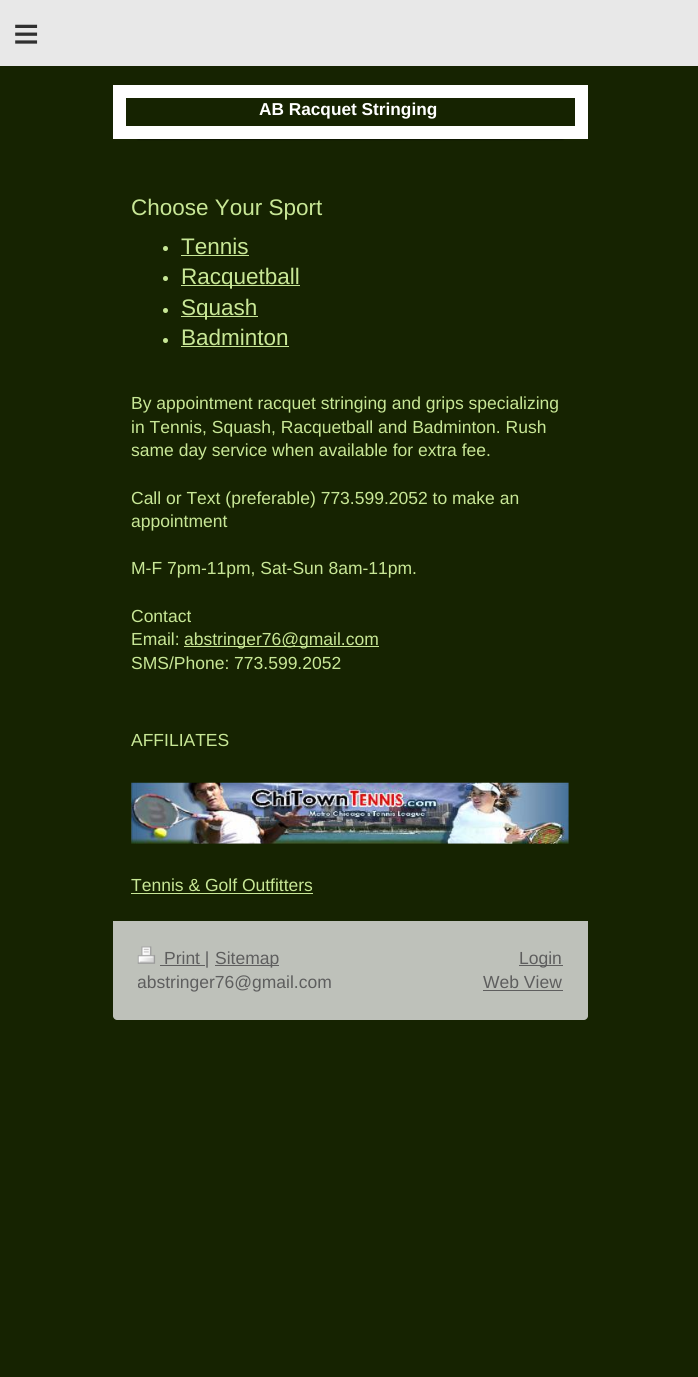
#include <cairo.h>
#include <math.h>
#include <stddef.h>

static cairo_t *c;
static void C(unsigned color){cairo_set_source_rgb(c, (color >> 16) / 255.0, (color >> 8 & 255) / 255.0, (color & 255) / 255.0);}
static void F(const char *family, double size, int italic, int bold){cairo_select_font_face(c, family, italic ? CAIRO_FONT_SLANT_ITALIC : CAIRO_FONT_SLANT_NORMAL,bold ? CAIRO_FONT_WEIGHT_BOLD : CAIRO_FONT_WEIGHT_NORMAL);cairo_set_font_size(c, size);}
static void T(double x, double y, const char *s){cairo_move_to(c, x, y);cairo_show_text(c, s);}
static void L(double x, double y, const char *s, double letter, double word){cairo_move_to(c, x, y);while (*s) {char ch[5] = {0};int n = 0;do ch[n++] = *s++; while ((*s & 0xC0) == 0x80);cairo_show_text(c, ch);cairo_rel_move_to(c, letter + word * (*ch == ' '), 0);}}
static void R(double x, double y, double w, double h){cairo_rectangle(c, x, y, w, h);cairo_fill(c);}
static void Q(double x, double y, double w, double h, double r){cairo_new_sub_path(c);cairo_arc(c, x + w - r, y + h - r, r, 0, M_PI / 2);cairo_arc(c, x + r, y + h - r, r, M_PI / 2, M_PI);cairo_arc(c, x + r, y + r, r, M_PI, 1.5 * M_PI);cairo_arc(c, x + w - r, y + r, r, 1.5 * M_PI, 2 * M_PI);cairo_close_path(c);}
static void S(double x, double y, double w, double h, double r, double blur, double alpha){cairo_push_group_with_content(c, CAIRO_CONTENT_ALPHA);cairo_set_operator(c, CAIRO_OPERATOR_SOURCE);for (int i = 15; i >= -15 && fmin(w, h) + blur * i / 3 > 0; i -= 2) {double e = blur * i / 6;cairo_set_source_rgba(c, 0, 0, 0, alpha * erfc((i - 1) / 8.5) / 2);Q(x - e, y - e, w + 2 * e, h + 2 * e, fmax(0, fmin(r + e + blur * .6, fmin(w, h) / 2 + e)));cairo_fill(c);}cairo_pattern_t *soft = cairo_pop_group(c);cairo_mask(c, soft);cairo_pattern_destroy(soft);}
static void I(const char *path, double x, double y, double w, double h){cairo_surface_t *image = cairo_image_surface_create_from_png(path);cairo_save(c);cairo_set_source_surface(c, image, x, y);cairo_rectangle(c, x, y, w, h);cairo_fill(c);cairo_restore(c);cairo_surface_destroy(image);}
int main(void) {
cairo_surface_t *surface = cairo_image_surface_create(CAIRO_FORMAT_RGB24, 698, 1377);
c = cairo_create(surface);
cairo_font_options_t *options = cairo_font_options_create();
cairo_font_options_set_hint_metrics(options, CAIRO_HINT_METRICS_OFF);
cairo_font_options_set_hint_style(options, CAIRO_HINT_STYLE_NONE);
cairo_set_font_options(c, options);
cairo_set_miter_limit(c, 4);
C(0x162301);
cairo_paint(c);
C(0xe8e8e8);
R(0,0,698,66);
F("Liberation Sans",45,0,0);
C(0x303030);
L(13,49,"≡",13,0);
C(0x000000);
S(138,135,425,4,0,1,1);
cairo_rectangle(c,119.5,91.5,462,41);
C(0xffffff);
cairo_set_line_width(c,13);
cairo_stroke(c);
F("Liberation Sans",17.25,0,1);
T(259,115,"AB Racquet Stringing");
F("Liberation Sans",22.5,0,0);
C(0xc8e796);
T(131,215,"Choose Your Sport");
cairo_new_path(c);
cairo_arc(c,165.5,248.5,2.5,0,2 * M_PI);
cairo_fill(c);
T(181,254,"Tennis");
R(181,255,68,1);
cairo_new_path(c);
cairo_arc(c,165.5,278.5,2.5,0,2 * M_PI);
cairo_fill(c);
R(181,285,119,1);
T(181,284,"Racquetball");
cairo_new_path(c);
cairo_arc(c,165.5,310.5,2.5,0,2 * M_PI);
cairo_fill(c);
R(181,316,77,1);
T(181,315,"Squash");
cairo_new_path(c);
cairo_arc(c,165.5,340.5,2.5,0,2 * M_PI);
cairo_fill(c);
T(181,345,"Badminton");
R(181,346,108,1);
F("Liberation Sans",17.5,0,0);
T(131,409,"By appointment racquet stringing and grips specializing");
T(131,433,"in Tennis, Squash, Racquetball and Badminton. Rush");
T(131,456,"same day service when available for extra fee.");
T(131,504,"Call or Text (preferable) 773.599.2052 to make an");
T(131,527,"appointment");
T(131,574,"M-F 7pm-11pm, Sat-Sun 8am-11pm.");
T(131,622,"Contact");
T(131,645,"Email:");
R(184,646,195,1);
T(184,645,"abstringer76@gmail.com");
T(131,669,"SMS/Phone: 773.599.2052");
T(131,746,"AFFILIATES");
I("1.png",131,782,438,62);
T(131,891,"Tennis & Golf Outfitters");
R(131,893,182,1);
C(0xbec1ba);
cairo_new_path(c);
cairo_move_to(c,113,921);
cairo_line_to(c,588,921);
cairo_line_to(c,588,1016);
cairo_curve_to(c,588,1018,586,1020,584,1020);
cairo_line_to(c,117,1020);
cairo_curve_to(c,115,1020,113,1018,113,1016);
cairo_close_path(c);
cairo_fill(c);
I("2.png",137,946,19,18);
C(0x5e5e5e);
R(160,965,45,1);
T(164,964,"Print |");
R(215,965,64,1);
T(215,964,"Sitemap");
cairo_save(c);
cairo_rectangle(c,138,946,425,49);
cairo_clip(c);
T(137,988,"abstringer76@gmail.com");
cairo_restore(c);
R(519,965,44,1);
T(519,964,"Login");
T(483,988,"Web View");
R(483,990,80,1);
cairo_surface_write_to_png(surface, "o.png");
cairo_font_options_destroy(options);
cairo_destroy(c);
cairo_surface_destroy(surface);
return 0;
}
